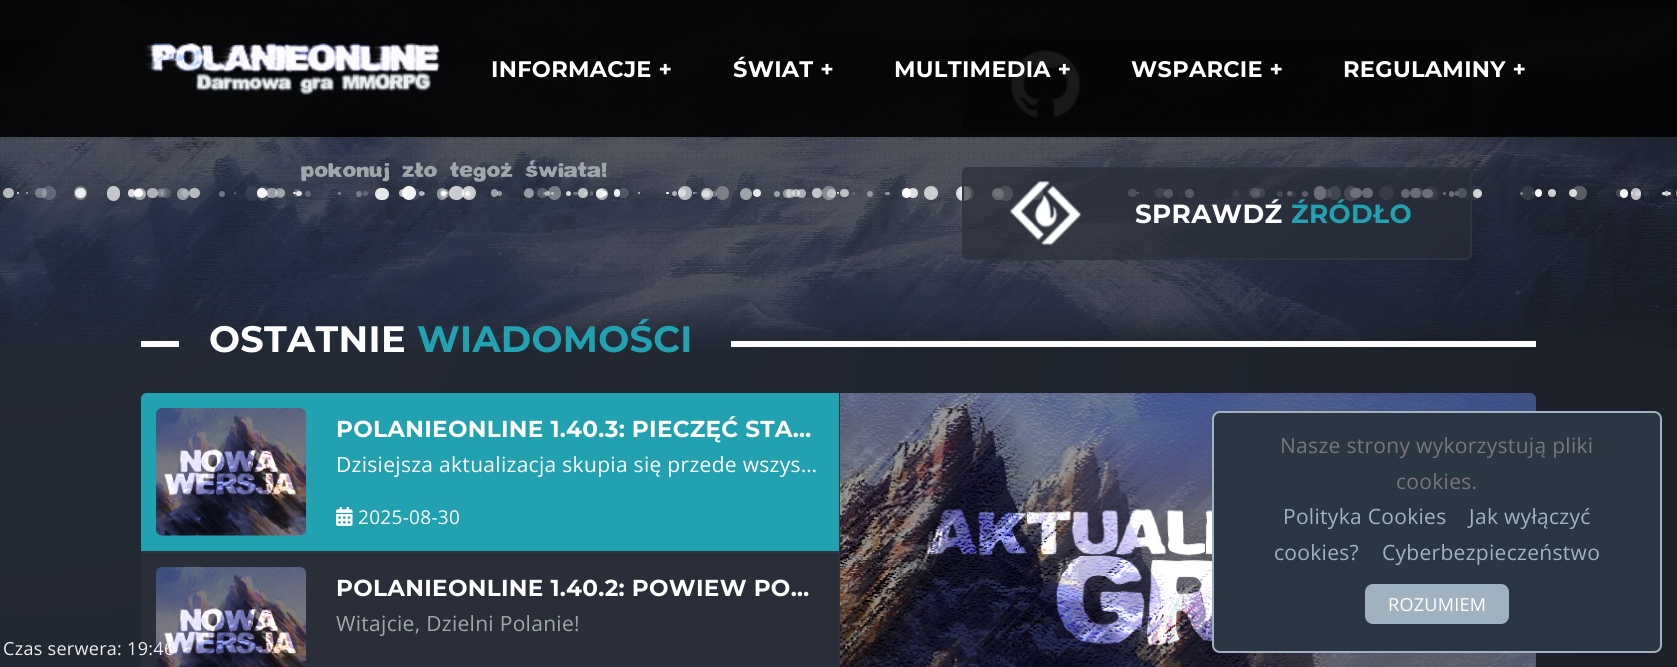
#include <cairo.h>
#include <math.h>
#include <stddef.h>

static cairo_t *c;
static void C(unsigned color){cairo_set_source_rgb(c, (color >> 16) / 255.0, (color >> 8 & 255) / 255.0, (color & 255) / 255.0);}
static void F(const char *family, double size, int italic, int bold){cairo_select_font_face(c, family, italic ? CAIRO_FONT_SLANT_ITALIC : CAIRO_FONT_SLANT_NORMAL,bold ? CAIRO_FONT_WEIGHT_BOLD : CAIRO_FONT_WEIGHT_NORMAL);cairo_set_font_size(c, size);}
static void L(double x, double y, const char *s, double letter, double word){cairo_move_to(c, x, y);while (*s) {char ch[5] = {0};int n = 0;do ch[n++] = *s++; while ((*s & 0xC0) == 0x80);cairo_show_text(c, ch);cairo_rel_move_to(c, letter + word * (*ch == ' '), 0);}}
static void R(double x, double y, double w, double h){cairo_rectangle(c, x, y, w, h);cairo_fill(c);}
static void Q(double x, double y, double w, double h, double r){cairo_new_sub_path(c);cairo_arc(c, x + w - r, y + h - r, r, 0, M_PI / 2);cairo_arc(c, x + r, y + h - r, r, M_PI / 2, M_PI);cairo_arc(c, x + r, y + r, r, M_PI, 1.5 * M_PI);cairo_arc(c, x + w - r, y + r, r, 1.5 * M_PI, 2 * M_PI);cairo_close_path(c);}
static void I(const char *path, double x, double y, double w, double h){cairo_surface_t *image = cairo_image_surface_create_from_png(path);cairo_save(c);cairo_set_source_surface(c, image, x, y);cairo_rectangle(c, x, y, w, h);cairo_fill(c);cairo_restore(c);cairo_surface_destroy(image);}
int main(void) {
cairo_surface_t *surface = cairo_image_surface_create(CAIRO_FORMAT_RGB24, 1677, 667);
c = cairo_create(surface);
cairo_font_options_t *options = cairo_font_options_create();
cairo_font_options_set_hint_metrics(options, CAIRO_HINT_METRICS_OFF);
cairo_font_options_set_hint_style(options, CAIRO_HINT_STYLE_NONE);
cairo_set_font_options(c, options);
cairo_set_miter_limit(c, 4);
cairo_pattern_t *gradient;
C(0xffffff);
cairo_paint(c);
gradient = cairo_pattern_create_radial(34,144,0,34,144,2472);
cairo_pattern_add_color_stop_rgba(gradient,0,0.145,0.169,0.212,1);
cairo_pattern_add_color_stop_rgba(gradient,1,0.094,0.11,0.137,1);
cairo_set_source(c,gradient);
cairo_pattern_destroy(gradient);
R(0,0,1677,667);
I("2.png",0,0,1677,349);
cairo_set_source_rgba(c,0.133,0.635,0.694,0.4);
R(191,77,226,3);
Q(963,-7,508,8,5);
C(0x2f3541);
cairo_stroke(c);
cairo_set_source_rgba(c,0.161,0.18,0.22,0.67);
Q(963,39,508,91,5);
cairo_fill_preserve(c);
C(0x2f3541);
cairo_stroke(c);
I("3.png",1010,50,72,68);
cairo_set_source_rgba(c,0,0,0,0.9);
R(0,0,1677,137);
I("1.png",145,43,295,52);
F("Montserrat",22.5,0,1);
C(0xffffff);
L(491,77,"INFORMACJE +",.3,0);
L(733,77,"ŚWIAT +",.3,0);
L(894,77,"MULTIMEDIA +",.3,0);
L(1131,77,"WSPARCIE +",.3,0);
L(1343,77,"REGULAMINY +",.3,0);
F("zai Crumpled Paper",21,0,0);
C(0xa0a7ab);
L(301,177,"pokonuj zło tegoż świata!",.3,0);
cairo_set_source_rgba(c,1,1,1,0.81);
cairo_new_path(c);
cairo_arc(c,963.5,193.5,7.5,0,2 * M_PI);
cairo_fill(c);
cairo_set_source_rgba(c,1,1,1,0.36);
Q(959,186,15,14,7);
cairo_fill(c);
cairo_set_source_rgba(c,1,1,1,0.86);
Q(993,189,9,8,4);
cairo_fill(c);
cairo_set_source_rgba(c,1,1,1,0.43);
cairo_arc(c,1005.5,193.5,7.5,0,2 * M_PI);
cairo_fill(c);
cairo_set_source_rgba(c,1,1,1,0.48);
cairo_arc(c,1036,193,7,0,2 * M_PI);
cairo_fill(c);
cairo_set_source_rgba(c,1,1,1,0.03);
R(1199,186,15,15);
cairo_set_source_rgba(c,1,1,1,0.96);
Q(1314,186,12,14,6);
cairo_fill(c);
cairo_set_source_rgba(c,1,1,1,0.33);
Q(1328,186,13,14,6.5);
cairo_fill(c);
cairo_set_source_rgba(c,1,1,1,0.41);
cairo_arc(c,1351.5,193.5,7.5,0,2 * M_PI);
cairo_fill(c);
cairo_set_source_rgba(c,1,1,1,0.2);
Q(1379,186,15,14,7);
cairo_fill(c);
cairo_set_source_rgba(c,1,1,1,0.13);
cairo_arc(c,1431.5,193.5,7.5,0,2 * M_PI);
cairo_fill(c);
cairo_set_source_rgba(c,1,1,1,0.06);
R(1466,186,13,14);
cairo_set_source_rgba(c,1,1,1,0.58);
cairo_arc(c,998,194,6,0,2 * M_PI);
cairo_fill(c);
cairo_set_source_rgba(c,1,1,1,0.62);
cairo_arc(c,997,193,4,0,2 * M_PI);
cairo_fill(c);
cairo_set_source_rgba(c,1,1,1,0.51);
cairo_arc(c,998,194,6,0,2 * M_PI);
cairo_fill(c);
cairo_set_source_rgba(c,1,1,1,0.6);
cairo_arc(c,1168.5,193.5,4.5,0,2 * M_PI);
cairo_fill(c);
cairo_set_source_rgba(c,1,1,1,0.27);
Q(1155,188,11,10,5);
cairo_fill(c);
cairo_set_source_rgba(c,1,1,1,0.56);
cairo_arc(c,1255,193,5,0,2 * M_PI);
cairo_fill(c);
cairo_set_source_rgba(c,1,1,1,0.31);
Q(1256,188,9,10,4.5);
cairo_fill(c);
cairo_set_source_rgba(c,1,1,1,0.96);
Q(1350,188,12,10,5);
cairo_fill(c);
cairo_set_source_rgba(c,1,1,1,0.9);
Q(1362,188,11,10,5);
cairo_fill(c);
Q(1410,188,11,10,5);
cairo_fill(c);
cairo_set_source_rgba(c,1,1,1,0.2);
cairo_arc(c,1432.5,193.5,1.5,0,2 * M_PI);
cairo_fill(c);
cairo_set_source_rgba(c,1,1,1,0.94);
Q(1422,189,11,9,4.5);
cairo_fill(c);
cairo_set_source_rgba(c,1,1,1,0.31);
Q(1412,188,12,10,5);
cairo_fill(c);
cairo_set_source_rgba(c,1,1,1,0.79);
cairo_arc(c,1456.5,193.5,2.5,0,2 * M_PI);
cairo_fill(c);
cairo_set_source_rgba(c,1,1,1,0.56);
cairo_arc(c,1462,193,5,0,2 * M_PI);
cairo_fill(c);
cairo_set_source_rgba(c,1,1,1,0.47);
Q(1128,189,9,8,4);
cairo_fill(c);
cairo_set_source_rgba(c,1,1,1,0.03);
R(1191,191,5,6);
cairo_set_source_rgba(c,1,1,1,0.64);
cairo_arc(c,1189.5,193.5,4.5,0,2 * M_PI);
cairo_fill(c);
cairo_set_source_rgba(c,1,1,1,0.22);
Q(1233,189,6,8,3);
cairo_fill(c);
cairo_set_source_rgba(c,1,1,1,0.37);
Q(1322,189,10,9,4.5);
cairo_fill(c);
cairo_set_source_rgba(c,1,1,1,0.84);
cairo_arc(c,1405.5,193.5,4.5,0,2 * M_PI);
cairo_fill(c);
cairo_set_source_rgba(c,1,1,1,0.06);
R(1142,191,3,5);
cairo_set_source_rgba(c,1,1,1,0.08);
Q(1178,191,6,5,2.5);
cairo_fill(c);
cairo_set_source_rgba(c,1,1,1,0.39);
cairo_arc(c,1280,194,3,0,2 * M_PI);
cairo_fill(c);
cairo_set_source_rgba(c,1,1,1,0.2);
Q(1289,191,7,6,3);
cairo_fill(c);
cairo_set_source_rgba(c,1,1,1,0.86);
cairo_arc(c,1289.5,193.5,2.5,0,2 * M_PI);
cairo_fill(c);
cairo_set_source_rgba(c,1,1,1,0.12);
cairo_arc(c,1432.5,193.5,4.5,0,2 * M_PI);
cairo_fill(c);
cairo_set_source_rgba(c,1,1,1,0.55);
cairo_arc(c,1305,194,3,0,2 * M_PI);
cairo_fill(c);
cairo_set_source_rgba(c,1,1,1,0.07);
R(987,192,2,2);
cairo_set_source_rgba(c,1,1,1,0.28);
cairo_arc(c,1003,193,1,0,2 * M_PI);
cairo_fill(c);
cairo_set_source_rgba(c,1,1,1,0.87);
cairo_arc(c,1138,193,1,0,2 * M_PI);
cairo_fill(c);
cairo_set_source_rgba(c,1,1,1,0.39);
cairo_arc(c,1255.5,193.5,1.5,0,2 * M_PI);
cairo_fill(c);
cairo_set_source_rgba(c,1,1,1,0.35);
cairo_arc(c,1305,194,3,0,2 * M_PI);
cairo_fill(c);
C(0xfdfdfd);
cairo_arc(c,1323.5,193.5,1.5,0,2 * M_PI);
cairo_fill(c);
C(0xe5e6e8);
Q(1403,191,3,5,1.5);
cairo_fill(c);
cairo_set_source_rgba(c,1,1,1,0.98);
Q(1449,191,5,6,2.5);
cairo_fill(c);
cairo_set_source_rgba(c,1,1,1,0.42);
Q(1404,192,5,3,1.5);
cairo_fill(c);
cairo_set_source_rgba(c,1,1,1,0.92);
cairo_arc(c,1444.5,193.5,1.5,0,2 * M_PI);
cairo_fill(c);
cairo_set_source_rgba(c,0.161,0.18,0.22,0.67);
Q(963,168,508,91,5);
cairo_fill_preserve(c);
C(0x2f3541);
cairo_stroke(c);
I("4.png",1010,181,72,65);
F("Montserrat",26.25,0,1);
C(0xffffff);
L(1135,223,"SPRAWDŹ",.3,0);
C(0x22a2b1);
L(1291,223,"ŹRÓDŁO",.3,0);
C(0xffffff);
R(141,341,38,6);
F("Montserrat",36.75,0,1);
L(209,352,"OSTATNIE",.3,0);
C(0x22a2b1);
L(417,352,"WIADOMOŚCI",.3,0);
C(0xffffff);
R(731,341,805,6);
C(0x292e38);
Q(141,393,1395,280,6);
cairo_fill(c);
C(0x22a2b1);
cairo_new_path(c);
cairo_move_to(c,147,393);
cairo_line_to(c,839,393);
cairo_line_to(c,839,551);
cairo_line_to(c,141,551);
cairo_line_to(c,141,399);
cairo_curve_to(c,141,395.5,143.5,393,147,393);
cairo_close_path(c);
cairo_fill(c);
I("5.png",156,408,150,128);
F("Montserrat",23.1,0,1);
C(0xffffff);
L(336,437,"POLANIEONLINE 1.40.3: PIECZĘĆ STA…",.3,0);
F("Open Sans",21,0,0);
L(336,472,"Dzisiejsza aktualizacja skupia się przede wszys…",.3,0);
I("6.png",336,507,17,19);
F("Open Sans",19,0,0);
L(358,524,"2025-08-30",.3,0);
C(0x2f3541);
R(141,551,698,2);
I("7.png",156,567,150,100);
F("Montserrat",23.1,0,1);
C(0xffffff);
L(336,596,"POLANIEONLINE 1.40.2: POWIEW PO…",.3,0);
F("Open Sans",21,0,0);
C(0xa0a7ab);
L(336,631,"Witajcie, Dzielni Polanie!",.3,0);
C(0x2f3541);
R(839,393,1,274);
I("8.png",840,393,696,274);
F("Open Sans",18,0,0);
C(0xeeeeee);
L(3,655,"Czas serwera: 19:46",.3,0);
cairo_set_source_rgba(c,1,1,1,0.2);
cairo_new_path(c);
cairo_arc(c,49,193,7,0,2 * M_PI);
cairo_fill(c);
cairo_set_source_rgba(c,1,1,1,0.83);
Q(75,188,11,10,5);
cairo_fill(c);
cairo_set_source_rgba(c,1,1,1,0.31);
Q(74,186,13,14,6.5);
cairo_fill(c);
cairo_set_source_rgba(c,1,1,1,0.71);
Q(107,186,13,15,6.5);
cairo_fill(c);
cairo_set_source_rgba(c,1,1,1,0.07);
cairo_arc(c,252.5,193.5,7.5,0,2 * M_PI);
cairo_fill(c);
cairo_set_source_rgba(c,1,1,1,0.4);
cairo_arc(c,280,193,5,0,2 * M_PI);
cairo_fill(c);
cairo_set_source_rgba(c,1,1,1,0.6);
cairo_arc(c,265.5,193.5,2.5,0,2 * M_PI);
cairo_fill(c);
cairo_set_source_rgba(c,1,1,1,0.48);
Q(266,188,12,10,5);
cairo_fill(c);
cairo_set_source_rgba(c,1,1,1,0.16);
Q(257,186,13,15,6.5);
cairo_fill(c);
cairo_set_source_rgba(c,1,1,1,0.66);
cairo_arc(c,403,193,4,0,2 * M_PI);
cairo_fill(c);
cairo_set_source_rgba(c,1,1,1,0.94);
cairo_arc(c,409,193,7,0,2 * M_PI);
cairo_fill(c);
cairo_set_source_rgba(c,1,1,1,0.74);
Q(449,186,15,14,7);
cairo_fill(c);
cairo_set_source_rgba(c,1,1,1,0.75);
cairo_arc(c,467.5,193.5,2.5,0,2 * M_PI);
cairo_fill(c);
cairo_set_source_rgba(c,1,1,1,0.19);
Q(462,188,11,10,5);
cairo_fill(c);
cairo_set_source_rgba(c,1,1,1,0.72);
cairo_arc(c,469,193,7,0,2 * M_PI);
cairo_fill(c);
cairo_set_source_rgba(c,1,1,1,0.32);
cairo_arc(c,544.5,193.5,1.5,0,2 * M_PI);
cairo_fill(c);
cairo_set_source_rgba(c,1,1,1,0.54);
cairo_arc(c,547.5,193.5,2.5,0,2 * M_PI);
cairo_fill(c);
cairo_set_source_rgba(c,1,1,1,0.53);
cairo_arc(c,552.5,193.5,1.5,0,2 * M_PI);
cairo_fill(c);
cairo_set_source_rgba(c,1,1,1,0.36);
Q(548,186,13,14,6.5);
cairo_fill(c);
cairo_set_source_rgba(c,1,1,1,0.64);
cairo_arc(c,685,193,7,0,2 * M_PI);
cairo_fill(c);
cairo_set_source_rgba(c,1,1,1,0.57);
cairo_arc(c,707,194,6,0,2 * M_PI);
cairo_fill(c);
cairo_set_source_rgba(c,1,1,1,0.27);
cairo_arc(c,714,194,3,0,2 * M_PI);
cairo_fill(c);
cairo_set_source_rgba(c,1,1,1,0.31);
Q(716,186,13,14,6.5);
cairo_fill(c);
cairo_set_source_rgba(c,1,1,1,0.2);
R(834,192,2,2);
cairo_set_source_rgba(c,1,1,1,0.37);
cairo_arc(c,829,193,7,0,2 * M_PI);
cairo_fill(c);
cairo_set_source_rgba(c,1,1,1,0.72);
cairo_arc(c,931,193,7,0,2 * M_PI);
cairo_fill(c);
cairo_set_source_rgba(c,1,1,1,0.65);
Q(3,188,11,10,5);
cairo_fill(c);
cairo_set_source_rgba(c,1,1,1,0.33);
Q(35,188,12,10,5);
cairo_fill(c);
cairo_set_source_rgba(c,1,1,1,0.25);
cairo_arc(c,142.5,193.5,2.5,0,2 * M_PI);
cairo_fill(c);
cairo_set_source_rgba(c,1,1,1,0.5);
cairo_arc(c,140,194,6,0,2 * M_PI);
cairo_fill(c);
cairo_set_source_rgba(c,1,1,1,0.76);
Q(128,189,7,8,3.5);
cairo_fill(c);
cairo_set_source_rgba(c,1,1,1,0.98);
Q(134,189,9,8,4);
cairo_fill(c);
cairo_set_source_rgba(c,1,1,1,0.27);
cairo_arc(c,132.5,193.5,4.5,0,2 * M_PI);
cairo_fill(c);
cairo_set_source_rgba(c,1,1,1,0.04);
R(131,188,10,10);
cairo_set_source_rgba(c,1,1,1,0.37);
cairo_arc(c,1521.5,193.5,1.5,0,2 * M_PI);
cairo_fill(c);
cairo_set_source_rgba(c,1,1,1,0.1);
cairo_arc(c,1528,193,7,0,2 * M_PI);
cairo_fill(c);
cairo_set_source_rgba(c,1,1,1,0.26);
Q(1572,186,15,14,7);
cairo_fill(c);
cairo_set_source_rgba(c,1,1,1,0.44);
Q(1676,186,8,14,7);
cairo_fill(c);
cairo_set_source_rgba(c,1,1,1,0.14);
Q(156,188,11,10,5);
cairo_fill(c);
cairo_set_source_rgba(c,1,1,1,0.59);
Q(147,188,11,10,5);
cairo_fill(c);
cairo_set_source_rgba(c,1,1,1,0.28);
Q(158,189,6,8,3);
cairo_fill(c);
cairo_set_source_rgba(c,1,1,1,0.16);
cairo_arc(c,166,193,5,0,2 * M_PI);
cairo_fill(c);
cairo_set_source_rgba(c,1,1,1,0.22);
Q(182,189,7,8,3.5);
cairo_fill(c);
cairo_set_source_rgba(c,1,1,1,0.5);
cairo_arc(c,183,194,6,0,2 * M_PI);
cairo_fill(c);
cairo_set_source_rgba(c,1,1,1,0.63);
Q(189,188,11,10,5);
cairo_fill(c);
cairo_set_source_rgba(c,1,1,1,0.95);
cairo_arc(c,262,193,5,0,2 * M_PI);
cairo_fill(c);
cairo_set_source_rgba(c,1,1,1,0.88);
Q(375,188,14,12,6);
cairo_fill(c);
cairo_set_source_rgba(c,1,1,1,0.64);
cairo_arc(c,421.5,193.5,2.5,0,2 * M_PI);
cairo_fill(c);
cairo_set_source_rgba(c,1,1,1,0.11);
cairo_arc(c,414,194,6,0,2 * M_PI);
cairo_fill(c);
cairo_set_source_rgba(c,1,1,1,0.98);
cairo_arc(c,443.5,193.5,2.5,0,2 * M_PI);
cairo_fill(c);
cairo_set_source_rgba(c,1,1,1,0.48);
Q(437,188,10,12,5);
cairo_fill(c);
cairo_set_source_rgba(c,1,1,1,0.4);
cairo_arc(c,529,193,5,0,2 * M_PI);
cairo_fill(c);
cairo_set_source_rgba(c,1,1,1,0.23);
Q(537,188,11,10,5);
cairo_fill(c);
cairo_set_source_rgba(c,1,1,1,0.27);
cairo_arc(c,585.5,193.5,1.5,0,2 * M_PI);
cairo_fill(c);
cairo_set_source_rgba(c,1,1,1,0.68);
cairo_arc(c,583,193,5,0,2 * M_PI);
cairo_fill(c);
cairo_set_source_rgba(c,1,1,1,0.93);
cairo_arc(c,604.5,193.5,2.5,0,2 * M_PI);
cairo_fill(c);
cairo_set_source_rgba(c,1,1,1,0.55);
cairo_arc(c,602,194,6,0,2 * M_PI);
cairo_fill(c);
cairo_set_source_rgba(c,1,1,1,0.91);
Q(614,189,6,8,3);
cairo_fill(c);
cairo_set_source_rgba(c,1,1,1,0.16);
Q(618,188,11,10,5);
cairo_fill(c);
cairo_set_source_rgba(c,1,1,1,0.53);
cairo_arc(c,746,194,6,0,2 * M_PI);
cairo_fill(c);
cairo_set_source_rgba(c,1,1,1,0.69);
cairo_arc(c,817,193,5,0,2 * M_PI);
cairo_fill(c);
cairo_set_source_rgba(c,1,1,1,0.98);
Q(902,188,9,10,4.5);
cairo_fill(c);
cairo_set_source_rgba(c,1,1,1,0.81);
cairo_arc(c,913,193,5,0,2 * M_PI);
cairo_fill(c);
cairo_set_source_rgba(c,1,1,1,0.33);
Q(1635,191,6,5,2.5);
cairo_fill(c);
cairo_set_source_rgba(c,1,1,1,0.78);
cairo_arc(c,1632,193,1,0,2 * M_PI);
cairo_fill(c);
cairo_set_source_rgba(c,1,1,1,0.69);
Q(1631,188,10,12,5);
cairo_fill(c);
cairo_set_source_rgba(c,1,1,1,0.23);
Q(278,189,7,8,3.5);
cairo_fill(c);
cairo_set_source_rgba(c,1,1,1,0.22);
Q(294,189,6,8,3);
cairo_fill(c);
cairo_set_source_rgba(c,1,1,1,0.35);
cairo_arc(c,444.5,193.5,4.5,0,2 * M_PI);
cairo_fill(c);
cairo_set_source_rgba(c,1,1,1,0.61);
cairo_arc(c,447,193,1,0,2 * M_PI);
cairo_fill(c);
cairo_set_source_rgba(c,1,1,1,0.09);
cairo_arc(c,447.5,193.5,4.5,0,2 * M_PI);
cairo_fill(c);
cairo_set_source_rgba(c,1,1,1,0.49);
cairo_arc(c,499.5,193.5,2.5,0,2 * M_PI);
cairo_fill(c);
cairo_set_source_rgba(c,1,1,1,0.52);
Q(491,189,7,8,3.5);
cairo_fill(c);
cairo_set_source_rgba(c,1,1,1,0.2);
cairo_arc(c,528.5,193.5,4.5,0,2 * M_PI);
cairo_fill(c);
cairo_set_source_rgba(c,1,1,1,0.77);
cairo_arc(c,600.5,193.5,4.5,0,2 * M_PI);
cairo_fill(c);
cairo_set_source_rgba(c,1,1,1,0.49);
cairo_arc(c,682,193,4,0,2 * M_PI);
cairo_fill(c);
cairo_set_source_rgba(c,1,1,1,0.27);
cairo_arc(c,706.5,193.5,4.5,0,2 * M_PI);
cairo_fill(c);
cairo_set_source_rgba(c,1,1,1,0.88);
cairo_arc(c,757,193,4,0,2 * M_PI);
cairo_fill(c);
cairo_set_source_rgba(c,1,1,1,0.44);
cairo_arc(c,787.5,193.5,4.5,0,2 * M_PI);
cairo_fill(c);
cairo_set_source_rgba(c,1,1,1,0.58);
cairo_arc(c,801.5,193.5,4.5,0,2 * M_PI);
cairo_fill(c);
cairo_set_source_rgba(c,1,1,1,0.59);
cairo_arc(c,796,193,4,0,2 * M_PI);
cairo_fill(c);
cairo_set_source_rgba(c,1,1,1,0.51);
cairo_arc(c,790.5,193.5,4.5,0,2 * M_PI);
cairo_fill(c);
cairo_set_source_rgba(c,1,1,1,0.44);
cairo_arc(c,831.5,193.5,4.5,0,2 * M_PI);
cairo_fill(c);
cairo_set_source_rgba(c,1,1,1,0.66);
Q(840,189,9,8,4);
cairo_fill(c);
cairo_set_source_rgba(c,1,1,1,0.04);
R(899,189,4,8);
C(0xf2f2f3);
cairo_arc(c,80.5,193.5,2.5,0,2 * M_PI);
cairo_fill(c);
cairo_set_source_rgba(c,1,1,1,0.35);
cairo_arc(c,222,194,3,0,2 * M_PI);
cairo_fill(c);
cairo_set_source_rgba(c,1,1,1,0.83);
Q(296,191,6,5,2.5);
cairo_fill(c);
cairo_set_source_rgba(c,1,1,1,0.23);
cairo_arc(c,308,194,3,0,2 * M_PI);
cairo_fill(c);
cairo_set_source_rgba(c,1,1,1,0.3);
cairo_arc(c,359,194,3,0,2 * M_PI);
cairo_fill(c);
cairo_set_source_rgba(c,1,1,1,0.2);
cairo_arc(c,365.5,193.5,2.5,0,2 * M_PI);
cairo_fill(c);
cairo_set_source_rgba(c,1,1,1,0.7);
cairo_arc(c,404.5,193.5,2.5,0,2 * M_PI);
cairo_fill(c);
cairo_set_source_rgba(c,1,1,1,0.82);
cairo_arc(c,568.5,193.5,2.5,0,2 * M_PI);
cairo_fill(c);
cairo_set_source_rgba(c,1,1,1,0.23);
Q(590,191,3,5,1.5);
cairo_fill(c);
cairo_set_source_rgba(c,1,1,1,0.6);
cairo_arc(c,674.5,193.5,2.5,0,2 * M_PI);
cairo_fill(c);
cairo_set_source_rgba(c,1,1,1,0.44);
Q(702,191,8,6,3);
cairo_fill(c);
cairo_set_source_rgba(c,1,1,1,0.49);
cairo_arc(c,777,194,3,0,2 * M_PI);
cairo_fill(c);
cairo_set_source_rgba(c,1,1,1,0.42);
cairo_arc(c,870,194,3,0,2 * M_PI);
cairo_fill(c);
cairo_set_source_rgba(c,1,1,1,0.3);
cairo_arc(c,1479.5,193.5,1.5,0,2 * M_PI);
cairo_fill(c);
cairo_set_source_rgba(c,1,1,1,0.77);
cairo_arc(c,1477.5,193.5,4.5,0,2 * M_PI);
cairo_fill(c);
cairo_set_source_rgba(c,1,1,1,0.97);
Q(1535,189,7,8,3.5);
cairo_fill(c);
cairo_set_source_rgba(c,1,1,1,0.78);
cairo_arc(c,1552,193,4,0,2 * M_PI);
cairo_fill(c);
cairo_set_source_rgba(c,1,1,1,0.8);
cairo_arc(c,1573,193,4,0,2 * M_PI);
cairo_fill(c);
cairo_set_source_rgba(c,1,1,1,0.96);
Q(1620,189,8,9,4);
cairo_fill(c);
cairo_set_source_rgba(c,1,1,1,0.17);
Q(1616,189,7,8,3.5);
cairo_fill(c);
cairo_set_source_rgba(c,1,1,1,0.74);
cairo_arc(c,1666.5,193.5,2.5,0,2 * M_PI);
cairo_fill(c);
cairo_set_source_rgba(c,1,1,1,0.06);
R(1665,189,8,9);
cairo_set_source_rgba(c,1,1,1,0.96);
cairo_arc(c,18,193,1,0,2 * M_PI);
cairo_fill(c);
C(0xadafb6);
cairo_arc(c,27,193,1,0,2 * M_PI);
cairo_fill(c);
cairo_set_source_rgba(c,1,1,1,0.24);
R(234,192,2,2);
cairo_set_source_rgba(c,1,1,1,0.85);
Q(293,192,3,2,1);
cairo_fill(c);
cairo_set_source_rgba(c,1,1,1,0.38);
cairo_arc(c,339.5,193.5,1.5,0,2 * M_PI);
cairo_fill(c);
cairo_set_source_rgba(c,1,1,1,0.43);
Q(423,192,2,3,1);
cairo_fill(c);
cairo_set_source_rgba(c,1,1,1,0.31);
Q(573,192,5,3,1.5);
cairo_fill(c);
C(0xf6f7f7);
cairo_arc(c,616,193,1,0,2 * M_PI);
cairo_fill(c);
cairo_set_source_rgba(c,1,1,1,0.75);
cairo_arc(c,639,193,1,0,2 * M_PI);
cairo_fill(c);
cairo_set_source_rgba(c,1,1,1,0.99);
Q(666,192,3,2,1);
cairo_fill(c);
cairo_set_source_rgba(c,1,1,1,0.61);
cairo_arc(c,694,193,1,0,2 * M_PI);
cairo_fill(c);
cairo_set_source_rgba(c,1,1,1,0.32);
cairo_arc(c,696,193,1,0,2 * M_PI);
cairo_fill(c);
cairo_set_source_rgba(c,1,1,1,0.96);
cairo_arc(c,838,193,1,0,2 * M_PI);
cairo_fill(c);
cairo_set_source_rgba(c,1,1,1,0.13);
cairo_arc(c,853.5,193.5,1.5,0,2 * M_PI);
cairo_fill(c);
cairo_set_source_rgba(c,1,1,1,0.45);
Q(885,192,5,3,1.5);
cairo_fill(c);
cairo_set_source_rgba(c,1,1,1,0.07);
cairo_arc(c,1646.5,193.5,2.5,0,2 * M_PI);
cairo_fill(c);
C(0x535862);
cairo_arc(c,1533,193,1,0,2 * M_PI);
cairo_fill(c);
C(0xffffff);
cairo_arc(c,1626,193,1,0,2 * M_PI);
cairo_fill(c);
cairo_set_source_rgba(c,1,1,1,0.9);
cairo_arc(c,1663.5,193.5,1.5,0,2 * M_PI);
cairo_fill(c);
cairo_set_source_rgba(c,1,1,1,0.85);
cairo_arc(c,1669.5,193.5,1.5,0,2 * M_PI);
cairo_fill(c);
C(0x2b3643);
Q(1213,412,448,240,7);
cairo_fill_preserve(c);
C(0xa0b2c0);
cairo_stroke(c);
F("Open Sans",21,0,0);
C(0x777777);
L(1280,453,"Nasze strony wykorzystują pliki",.3,0);
L(1396,489,"cookies.",.3,0);
C(0xa0b2c0);
L(1283,524,"Polityka Cookies",.3,0);
L(1469,524,"Jak wyłączyć",.3,0);
L(1274,560,"cookies?",.3,0);
L(1382,560,"Cyberbezpieczeństwo",.3,0);
Q(1365,584,144,40,8);
cairo_fill(c);
F("Open Sans",18,0,0);
C(0xffffff);
L(1388,611,"ROZUMIEM",.3,0);
cairo_surface_write_to_png(surface, "o.png");
cairo_font_options_destroy(options);
cairo_destroy(c);
cairo_surface_destroy(surface);
return 0;
}
